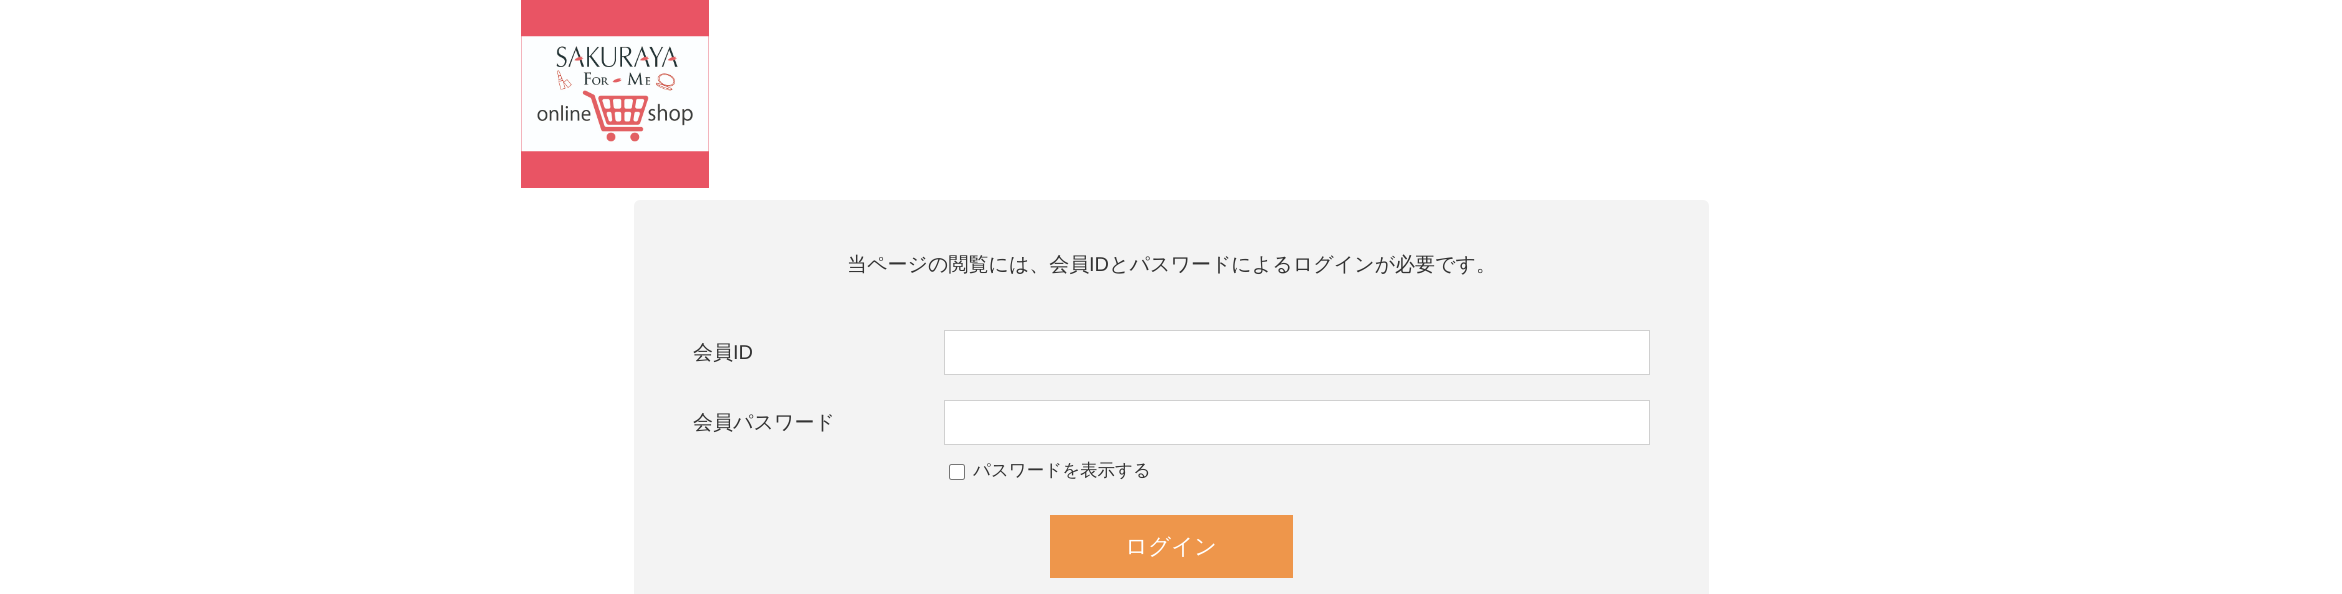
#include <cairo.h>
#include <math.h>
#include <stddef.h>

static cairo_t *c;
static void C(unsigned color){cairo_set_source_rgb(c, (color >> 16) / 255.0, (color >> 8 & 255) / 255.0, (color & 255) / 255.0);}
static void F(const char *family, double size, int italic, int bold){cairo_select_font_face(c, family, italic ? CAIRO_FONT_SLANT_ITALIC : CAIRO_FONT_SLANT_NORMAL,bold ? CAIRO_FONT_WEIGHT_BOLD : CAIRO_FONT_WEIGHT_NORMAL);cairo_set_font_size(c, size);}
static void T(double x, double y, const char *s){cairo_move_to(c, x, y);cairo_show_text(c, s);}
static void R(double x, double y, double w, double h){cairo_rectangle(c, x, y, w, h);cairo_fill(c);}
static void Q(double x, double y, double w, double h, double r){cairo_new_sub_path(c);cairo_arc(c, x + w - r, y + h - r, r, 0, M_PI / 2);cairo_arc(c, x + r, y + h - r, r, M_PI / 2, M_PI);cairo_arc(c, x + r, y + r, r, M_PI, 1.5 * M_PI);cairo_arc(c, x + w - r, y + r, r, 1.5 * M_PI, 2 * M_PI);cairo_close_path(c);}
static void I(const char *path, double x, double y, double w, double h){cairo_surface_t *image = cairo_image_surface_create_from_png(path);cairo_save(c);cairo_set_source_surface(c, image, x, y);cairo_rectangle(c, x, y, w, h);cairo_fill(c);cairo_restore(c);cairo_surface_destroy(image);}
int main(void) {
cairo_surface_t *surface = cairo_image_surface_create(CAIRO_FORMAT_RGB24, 2342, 594);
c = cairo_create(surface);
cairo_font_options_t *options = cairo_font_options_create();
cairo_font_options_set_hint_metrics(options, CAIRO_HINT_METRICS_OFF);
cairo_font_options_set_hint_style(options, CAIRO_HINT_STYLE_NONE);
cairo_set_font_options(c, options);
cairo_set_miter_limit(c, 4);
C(0xffffff);
cairo_paint(c);
C(0xe95464);
R(521,0,188,188);
I("1.png",521,36,188,116);
C(0xf3f3f3);
Q(634,200,1075,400,6);
cairo_fill(c);
F("WenQuanYi Zen Hei Medium",20,0,0);
C(0x333333);
T(847,271,"当ページの閲覧には、会員");
F("Liberation Sans",20,0,0);
T(1089,271,"ID");
F("WenQuanYi Zen Hei Medium",20,0,0);
T(1109,271,"とパスワードによるログインが必要です。");
T(693,359,"会員");
F("Liberation Sans",20,0,0);
T(733,359,"ID");
C(0xffffff);
cairo_rectangle(c,944.5,330.5,705,44);
cairo_fill_preserve(c);
C(0xd0d0d0);
cairo_set_line_width(c,1);
cairo_stroke(c);
F("WenQuanYi Zen Hei Medium",20,0,0);
C(0x333333);
T(693,429,"会員パスワード");
C(0xffffff);
cairo_rectangle(c,944.5,400.5,705,44);
cairo_fill_preserve(c);
C(0xd0d0d0);
cairo_stroke(c);
C(0xffffff);
Q(949.5,464.5,15,15,2);
cairo_fill_preserve(c);
C(0x767676);
cairo_stroke(c);
F("WenQuanYi Zen Hei Medium",17.5,0,0);
C(0x333333);
T(973,476,"パスワードを表示する");
C(0xee964b);
R(1050,515,243,63);
F("WenQuanYi Zen Hei Medium",22.5,0,0);
C(0xffffff);
T(1125,554,"ログイン");
cairo_surface_write_to_png(surface, "o.png");
cairo_font_options_destroy(options);
cairo_destroy(c);
cairo_surface_destroy(surface);
return 0;
}
